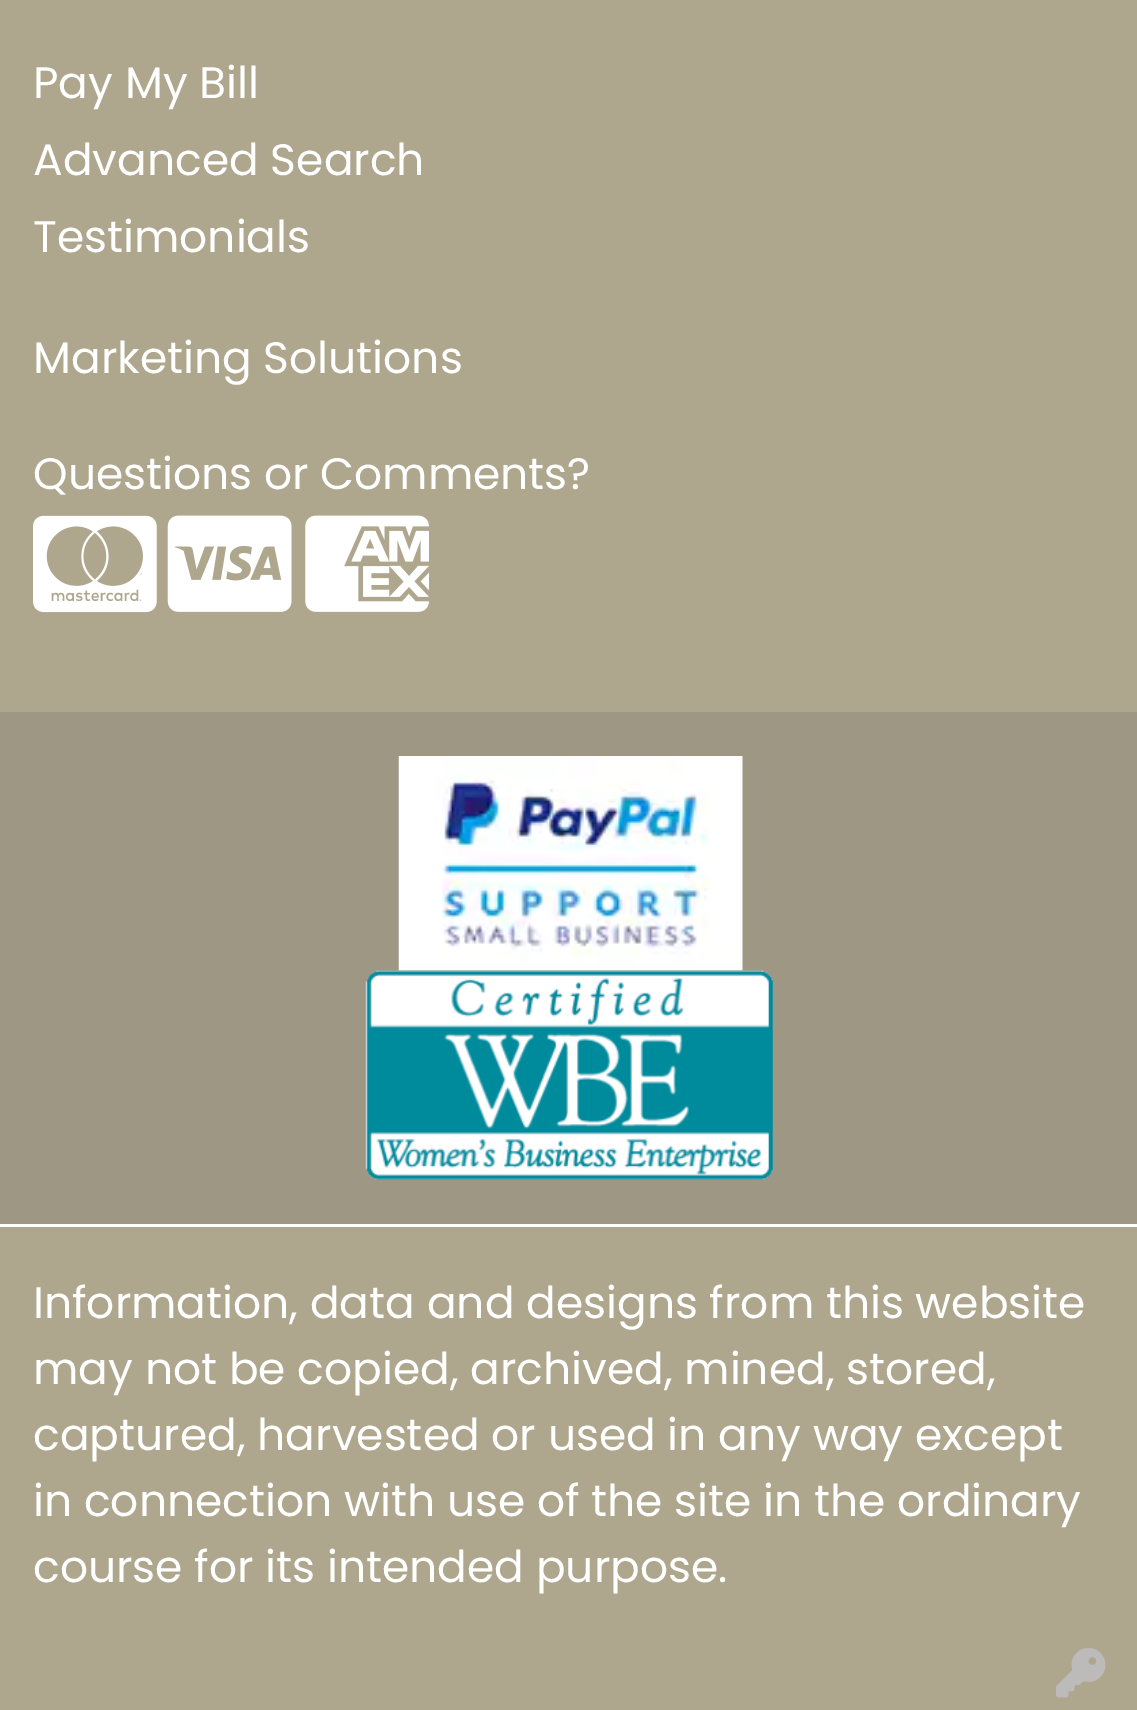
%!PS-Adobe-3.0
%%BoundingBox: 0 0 1137 1710
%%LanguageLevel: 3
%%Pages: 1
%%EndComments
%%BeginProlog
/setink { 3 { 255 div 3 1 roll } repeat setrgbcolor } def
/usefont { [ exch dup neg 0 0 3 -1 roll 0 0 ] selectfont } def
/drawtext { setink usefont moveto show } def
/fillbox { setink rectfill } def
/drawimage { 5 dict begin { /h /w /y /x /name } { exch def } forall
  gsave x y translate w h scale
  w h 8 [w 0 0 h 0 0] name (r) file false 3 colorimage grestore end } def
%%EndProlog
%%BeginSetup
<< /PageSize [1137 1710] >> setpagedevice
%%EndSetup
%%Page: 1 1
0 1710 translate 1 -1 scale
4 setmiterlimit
0 0 1137 1710 174 167 142 fillbox
(Pay My Bill) 33 98 /Poppins-Regular 44 255 255 255 drawtext
(Advanced Search) 33 175 /Poppins-Regular 44 255 255 255 drawtext
(Testimonials) 33 252 /Poppins-Regular 44 255 255 255 drawtext
(Marketing Solutions) 33 373 /Poppins-Regular 44 255 255 255 drawtext
(Questions or Comments?) 33 489 /Poppins-Regular 44 255 255 255 drawtext
(assets/img1.rgb) 33 515 124 98 drawimage
(assets/img2.rgb) 167 515 125 97 drawimage
(assets/img3.rgb) 305 515 124 97 drawimage
0 712 1137 512 157 151 132 fillbox
0 1224 1137 3 255 255 255 fillbox
(assets/img4.rgb) 398 756 345 215 drawimage
(assets/img5.rgb) 365 970 408 210 drawimage
(Information, data and designs from this website) 33 1318 /Poppins-Regular 44 255 255 255 drawtext
(may not be copied, archived, mined, stored,) 33 1384 /Poppins-Regular 44 255 255 255 drawtext
(captured, harvested or used in any way except) 33 1450 /Poppins-Regular 44 255 255 255 drawtext
(in connection with use of the site in the ordinary) 33 1516 /Poppins-Regular 44 255 255 255 drawtext
(course for its intended purpose.) 33 1582 /Poppins-Regular 44 255 255 255 drawtext
(assets/img6.rgb) 1056 1648 50 50 drawimage
showpage
%%EOF
